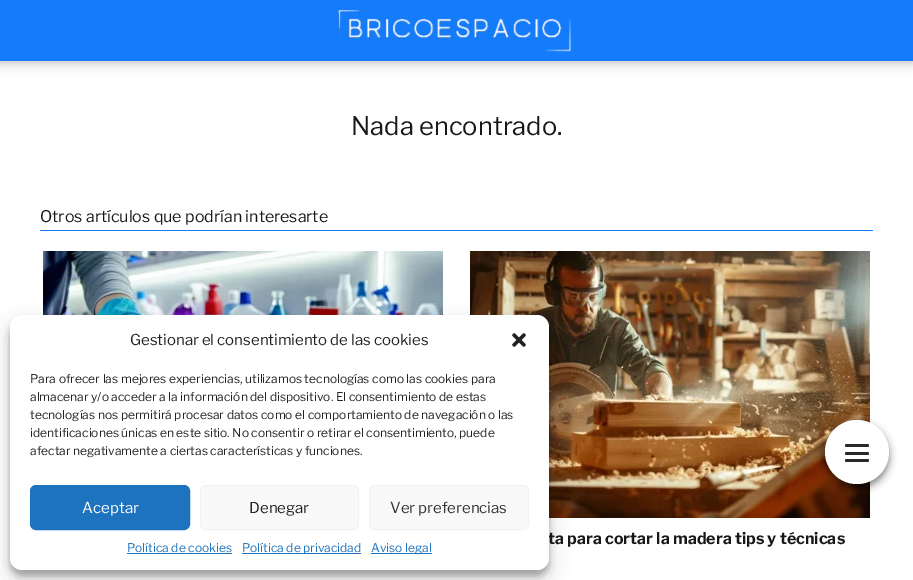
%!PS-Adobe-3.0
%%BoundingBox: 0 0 913 580
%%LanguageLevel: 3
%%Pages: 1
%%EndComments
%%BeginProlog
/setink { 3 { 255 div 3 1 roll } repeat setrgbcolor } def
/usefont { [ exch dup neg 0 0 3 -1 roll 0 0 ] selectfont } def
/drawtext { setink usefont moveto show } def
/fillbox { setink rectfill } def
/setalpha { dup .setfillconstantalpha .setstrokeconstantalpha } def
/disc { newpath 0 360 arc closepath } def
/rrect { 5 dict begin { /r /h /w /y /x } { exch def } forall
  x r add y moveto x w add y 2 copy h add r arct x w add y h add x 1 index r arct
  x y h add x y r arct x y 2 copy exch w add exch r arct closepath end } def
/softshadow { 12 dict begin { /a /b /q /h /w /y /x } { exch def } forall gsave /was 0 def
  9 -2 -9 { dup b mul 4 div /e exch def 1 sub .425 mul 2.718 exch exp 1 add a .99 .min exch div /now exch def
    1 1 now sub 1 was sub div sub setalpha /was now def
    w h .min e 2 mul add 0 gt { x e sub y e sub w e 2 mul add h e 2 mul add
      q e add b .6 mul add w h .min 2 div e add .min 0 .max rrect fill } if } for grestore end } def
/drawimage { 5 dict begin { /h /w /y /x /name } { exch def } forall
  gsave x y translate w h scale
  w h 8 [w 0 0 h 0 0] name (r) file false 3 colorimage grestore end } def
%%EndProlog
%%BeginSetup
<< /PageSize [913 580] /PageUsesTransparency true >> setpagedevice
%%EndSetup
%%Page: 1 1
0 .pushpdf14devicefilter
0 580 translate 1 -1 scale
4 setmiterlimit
0 0 913 580 255 255 255 fillbox
0 0 0 setink
0 1 913 61 0 6 0.3 softshadow
0 0 913 61 20 123 250 fillbox
(assets/img1.rgb) 338 10 234 42 drawimage
(assets/img3.rgb) 470 251 400 267 drawimage
0 0 0 setink
825 424 64 64 32 4 0.5 softshadow
255 255 255 setink
857 452 32 disc fill
40 40 40 setink
845 444 24 3 1.5 rrect fill
845 452 24 3 1.5 rrect fill
845 459 24 3 1.5 rrect fill
(Nada encontrado.) 351 135 /LibreFranklin-Thin 25.5 24 24 24 drawtext
40 230 833 1 20 123 250 fillbox
(Otros artículos que podrían interesarte) 40 222 /LibreFranklin-Thin 16 24 24 24 drawtext
(assets/img2.rgb) 43 251 400 64 drawimage
(ta para cortar la madera tips y técnicas) 548 544 /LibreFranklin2-Thin 16 24 24 24 drawtext
0 0 0 setink
10 321 539 255 12 3 0.23 softshadow
10 325 539 255 12 10 0.19 softshadow
255 255 255 setink
10 315 539 255 12 rrect fill
(Gestionar el consentimiento de las cookies) 130 345 /LibreFranklin-Thin 15 34 34 34 drawtext
(assets/img4.rgb) 512 333 14 14 drawimage
(Para ofrecer las mejores experiencias, utilizamos tecnologías como las cookies para) 30 383 /LibreFranklin-Thin 12 34 34 34 drawtext
(almacenar y/o acceder a la información del dispositivo. El consentimiento de estas) 30 401 /LibreFranklin-Thin 12 34 34 34 drawtext
(tecnologías nos permitirá procesar datos como el comportamiento de navegación o las) 30 419 /LibreFranklin-Thin 12 34 34 34 drawtext
(identificaciones únicas en este sitio. No consentir o retirar el consentimiento, puede) 30 437 /LibreFranklin-Thin 12 34 34 34 drawtext
(afectar negativamente a ciertas características y funciones.) 30 455 /LibreFranklin-Thin 12 34 34 34 drawtext
30 115 190 setink
30.5 485.5 159 44 5.5 rrect gsave fill grestore
stroke
(Aceptar) 82 513 /LibreFranklin-Thin 15 255 255 255 drawtext
249 249 249 setink
200.5 485.5 158 44 5.5 rrect gsave fill grestore
242 242 242 setink
stroke
(Denegar) 249 513 /LibreFranklin-Thin 15 34 34 34 drawtext
249 249 249 setink
369.5 485.5 159 44 5.5 rrect gsave fill grestore
242 242 242 setink
stroke
(Ver preferencias) 390 513 /LibreFranklin-Thin 15 51 51 51 drawtext
(Política de cookies) 127 552 /LibreFranklin-Thin 12 30 115 190 drawtext
127 553 105 1 30 115 190 fillbox
242 553 119 1 30 115 190 fillbox
(Política de privacidad) 242 552 /LibreFranklin-Thin 12 30 115 190 drawtext
371 553 61 1 30 115 190 fillbox
(Aviso legal) 371 552 /LibreFranklin-Thin 12 30 115 190 drawtext
.poppdf14devicefilter showpage
%%EOF
